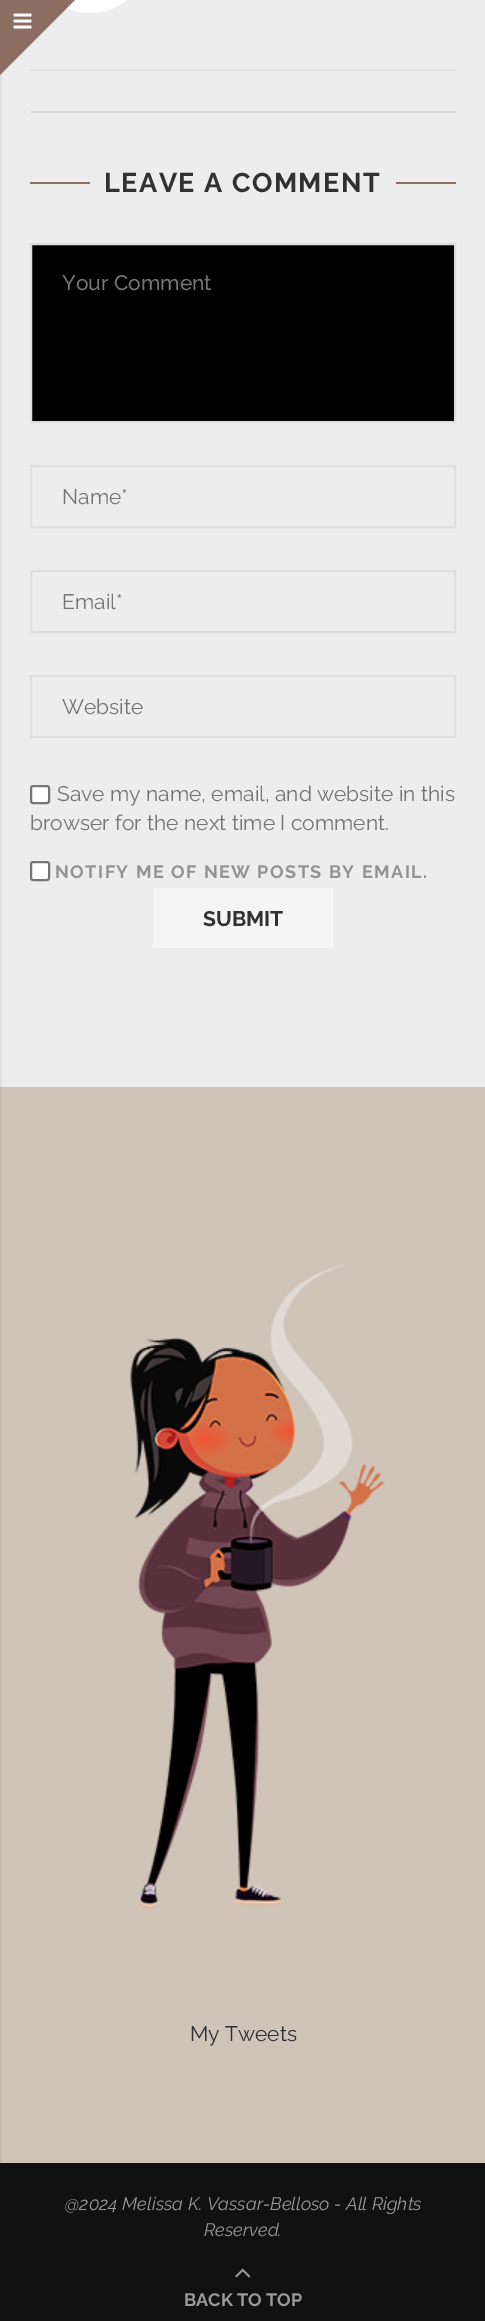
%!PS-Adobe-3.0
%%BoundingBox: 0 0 485 2321
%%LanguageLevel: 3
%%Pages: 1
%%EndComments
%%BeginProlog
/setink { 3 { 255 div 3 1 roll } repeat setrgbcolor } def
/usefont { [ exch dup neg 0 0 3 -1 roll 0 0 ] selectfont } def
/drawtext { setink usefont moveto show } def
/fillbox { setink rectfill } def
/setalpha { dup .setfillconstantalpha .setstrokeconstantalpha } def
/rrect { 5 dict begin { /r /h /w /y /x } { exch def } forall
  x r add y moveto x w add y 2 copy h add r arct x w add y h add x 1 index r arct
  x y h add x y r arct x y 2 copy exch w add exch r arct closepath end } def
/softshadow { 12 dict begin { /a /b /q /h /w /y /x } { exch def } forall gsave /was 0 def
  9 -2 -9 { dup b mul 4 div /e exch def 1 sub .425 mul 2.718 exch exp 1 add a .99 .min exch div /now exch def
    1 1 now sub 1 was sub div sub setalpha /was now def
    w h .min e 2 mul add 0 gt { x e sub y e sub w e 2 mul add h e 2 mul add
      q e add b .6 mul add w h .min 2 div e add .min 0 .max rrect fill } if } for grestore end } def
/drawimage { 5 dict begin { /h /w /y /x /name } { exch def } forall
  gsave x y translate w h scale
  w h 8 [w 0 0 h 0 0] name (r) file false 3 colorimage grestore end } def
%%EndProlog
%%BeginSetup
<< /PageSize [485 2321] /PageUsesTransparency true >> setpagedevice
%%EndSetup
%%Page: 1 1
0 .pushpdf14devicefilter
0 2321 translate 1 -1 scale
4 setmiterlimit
0 0 485 2321 237 237 237 fillbox
0 1087 485 1076 208 196 185 fillbox
0 2163 485 158 17 17 17 fillbox
0 0 0 setink
-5 0 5 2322 0 1.5 0.15 softshadow
(assets/img2.rgb) 66 0 61 13 drawimage
30 69 426 2 222 222 222 fillbox
141 110 99 setink
0 0 moveto 75 0 lineto 0 75 lineto closepath fill
(assets/img1.rgb) 13 13 19 16 drawimage
30 111 426 2 222 222 222 fillbox
30 182 60 2 141 110 99 fillbox
/Raleway-Bold 27 usefont
49 49 49 setink
104 192 moveto 1.5 0 (LEAVE A COMMENT) ashow
396 182 60 2 141 110 99 fillbox
0 0 0 setink
31 244 moveto 455 244 lineto 455 422 lineto 31 422 lineto closepath gsave fill grestore
222 222 222 setink
2 setlinewidth
stroke
(Your Comment) 62 290 /Raleway-Medium 21 117 117 117 drawtext
222 222 222 setink
31 466 424 61 rectstroke
(Name*) 62 504 /Raleway-Regular 21 117 117 117 drawtext
222 222 222 setink
31 571 424 61 rectstroke
(Email*) 62 609 /Raleway-Regular 21 117 117 117 drawtext
222 222 222 setink
31 676 424 61 rectstroke
(Website) 62 714 /Raleway-Regular 21 117 117 117 drawtext
255 255 255 setink
31 786 18 17 2 rrect gsave fill grestore
118 118 118 setink
stroke
(Save my name, email, and website in this) 57 801 /Raleway-Regular 21 117 117 117 drawtext
(browser for the next time I comment.) 30 830 /Raleway-Regular 21 117 117 117 drawtext
255 255 255 setink
31 862 18 18 2 rrect gsave fill grestore
118 118 118 setink
stroke
/Raleway-Bold 18 usefont
147 147 147 setink
55 878 moveto 1.5 0 (NOTIFY ME OF NEW POSTS BY EMAIL.) ashow
153 888 180 60 245 245 245 fillbox
(SUBMIT) 203 926 /Raleway-Bold 21 49 49 49 drawtext
(assets/img3.rgb) 130 1264 255 645 drawimage
(My Tweets) 190 2041 /Raleway-Regular 21 49 49 49 drawtext
(@2024 Melissa K. Vassar-Belloso - All Rights) 65 2210 /Raleway-Italic 18 153 153 153 drawtext
(Reserved.) 204 2236 /Raleway-Italic 18 153 153 153 drawtext
(assets/img4.rgb) 235 2268 16 10 drawimage
(BACK TO TOP) 184 2306 /Raleway-Bold 18 153 153 153 drawtext
.poppdf14devicefilter showpage
%%EOF
